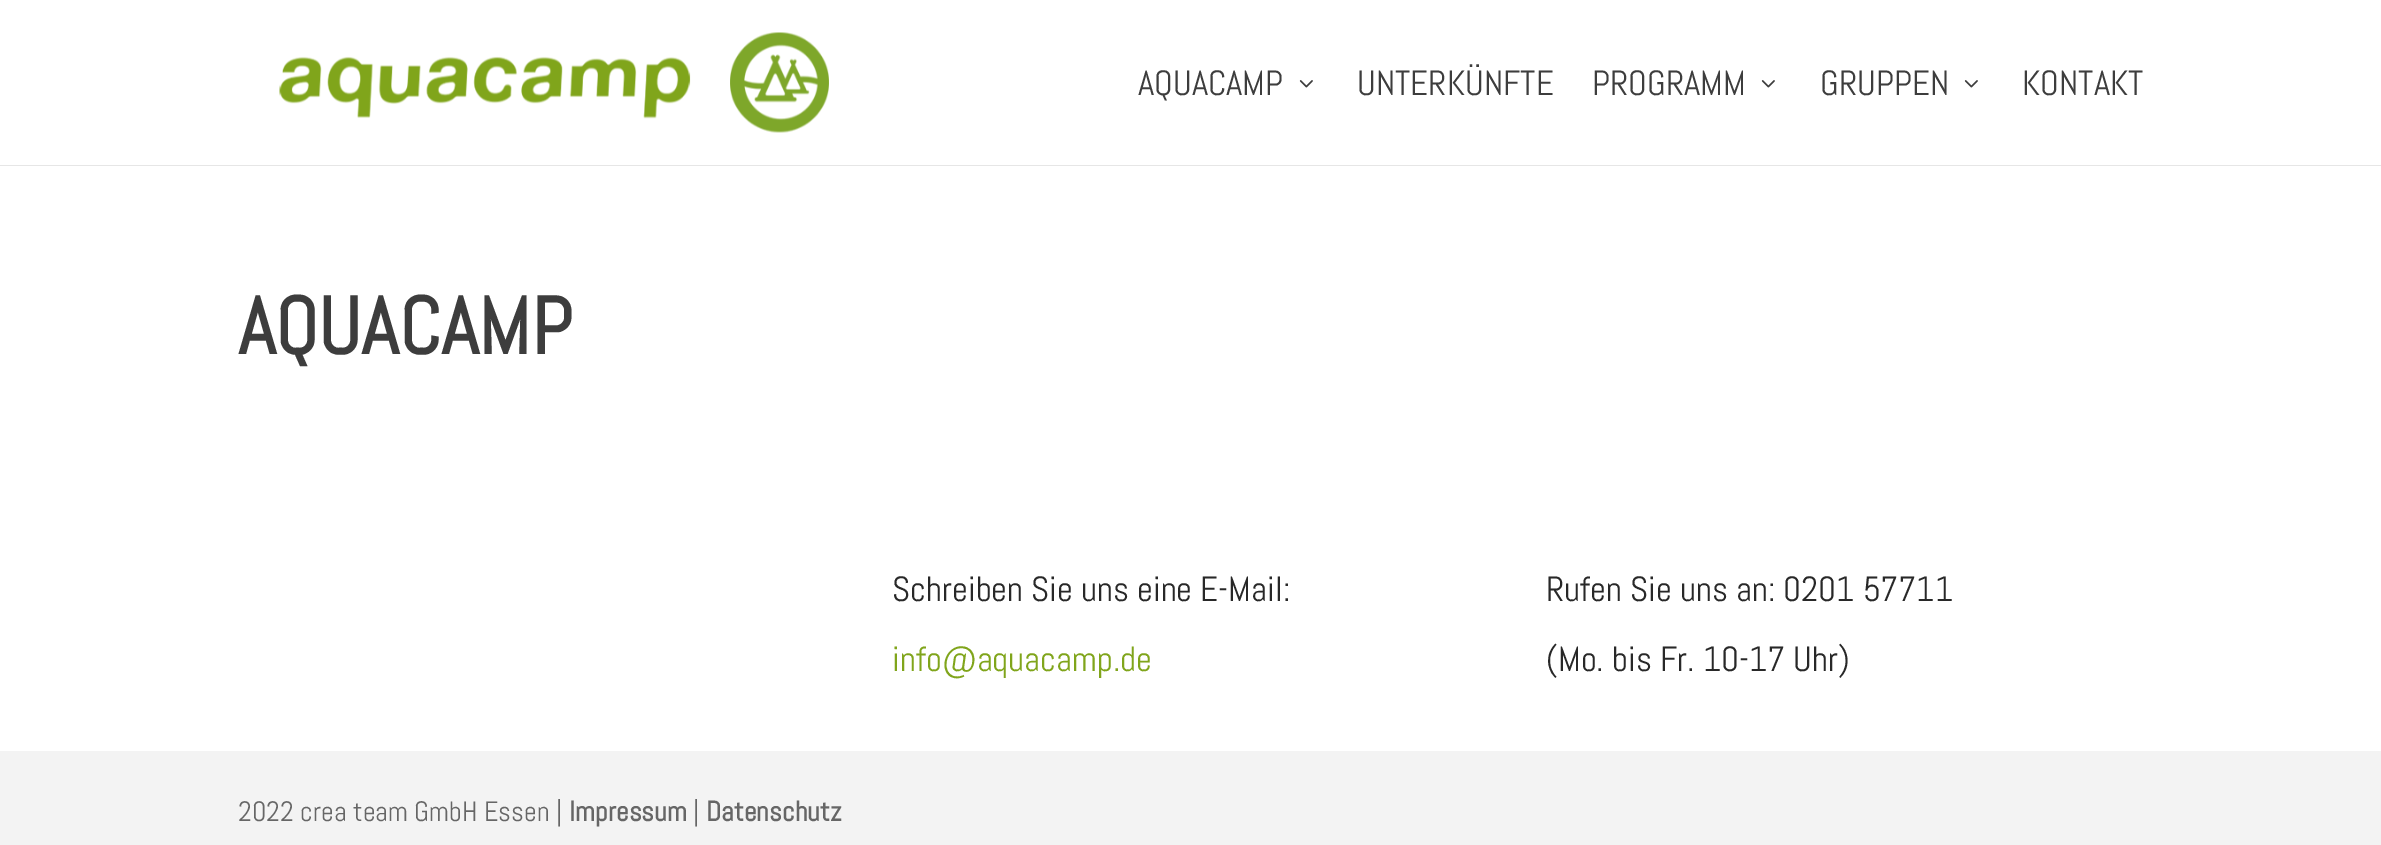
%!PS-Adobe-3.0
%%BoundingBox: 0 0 2381 845
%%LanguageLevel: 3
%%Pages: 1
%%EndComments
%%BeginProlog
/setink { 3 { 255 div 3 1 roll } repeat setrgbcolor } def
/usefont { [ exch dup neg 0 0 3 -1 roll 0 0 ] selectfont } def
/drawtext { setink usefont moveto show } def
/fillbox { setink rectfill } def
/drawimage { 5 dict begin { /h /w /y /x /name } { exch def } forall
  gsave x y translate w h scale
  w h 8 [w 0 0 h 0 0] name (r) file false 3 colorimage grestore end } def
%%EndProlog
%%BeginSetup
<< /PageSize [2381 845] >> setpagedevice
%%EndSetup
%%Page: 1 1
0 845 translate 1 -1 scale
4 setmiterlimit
0 0 2381 845 255 255 255 fillbox
230 230 230 setink
0 164 moveto 0 166 lineto 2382 166 lineto 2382 2 lineto 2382 164 lineto closepath fill
0 164 2381 1 255 255 255 fillbox
(assets/img1.rgb) 279 32 550 101 drawimage
(AQUACAMP) 1138 95 /Abel-Regular 35 61 61 61 drawtext
(assets/img2.rgb) 1299 80 14 8 drawimage
(UNTERKÜNFTE) 1357 95 /Abel-Regular 35 61 61 61 drawtext
(PROGRAMM) 1592 95 /Abel-Regular 35 61 61 61 drawtext
(assets/img2.rgb) 1761 80 14 8 drawimage
(GRUPPEN) 1820 95 /Abel-Regular 35 61 61 61 drawtext
(assets/img2.rgb) 1964 80 14 8 drawimage
(KONTAKT) 2022 95 /Abel-Regular 35 61 61 61 drawtext
(AQUACAMP) 238 354 /Abel-Bold 80.5 61 61 61 drawtext
(Schreiben Sie uns eine E-Mail:) 892 601 /Abel-Regular 35 40 40 40 drawtext
(info@aquacamp.de) 892 671 /Abel-Regular 35 128 165 27 drawtext
(Rufen Sie uns an: 0201 57711) 1546 601 /Abel-Regular 35 40 40 40 drawtext
(\(Mo. bis Fr. 10-17 Uhr\)) 1546 671 /Abel-Regular 35 40 40 40 drawtext
0 751 2381 94 243 243 243 fillbox
(2022 crea team GmbH Essen |) 238 821 /Abel-Regular 28 102 102 102 drawtext
(Impressum) 569 821 /Abel-Bold 28 102 102 102 drawtext
(|) 693 821 /Abel-Regular 28 102 102 102 drawtext
(Datenschutz) 706 821 /Abel-Bold 28 102 102 102 drawtext
showpage
%%EOF
